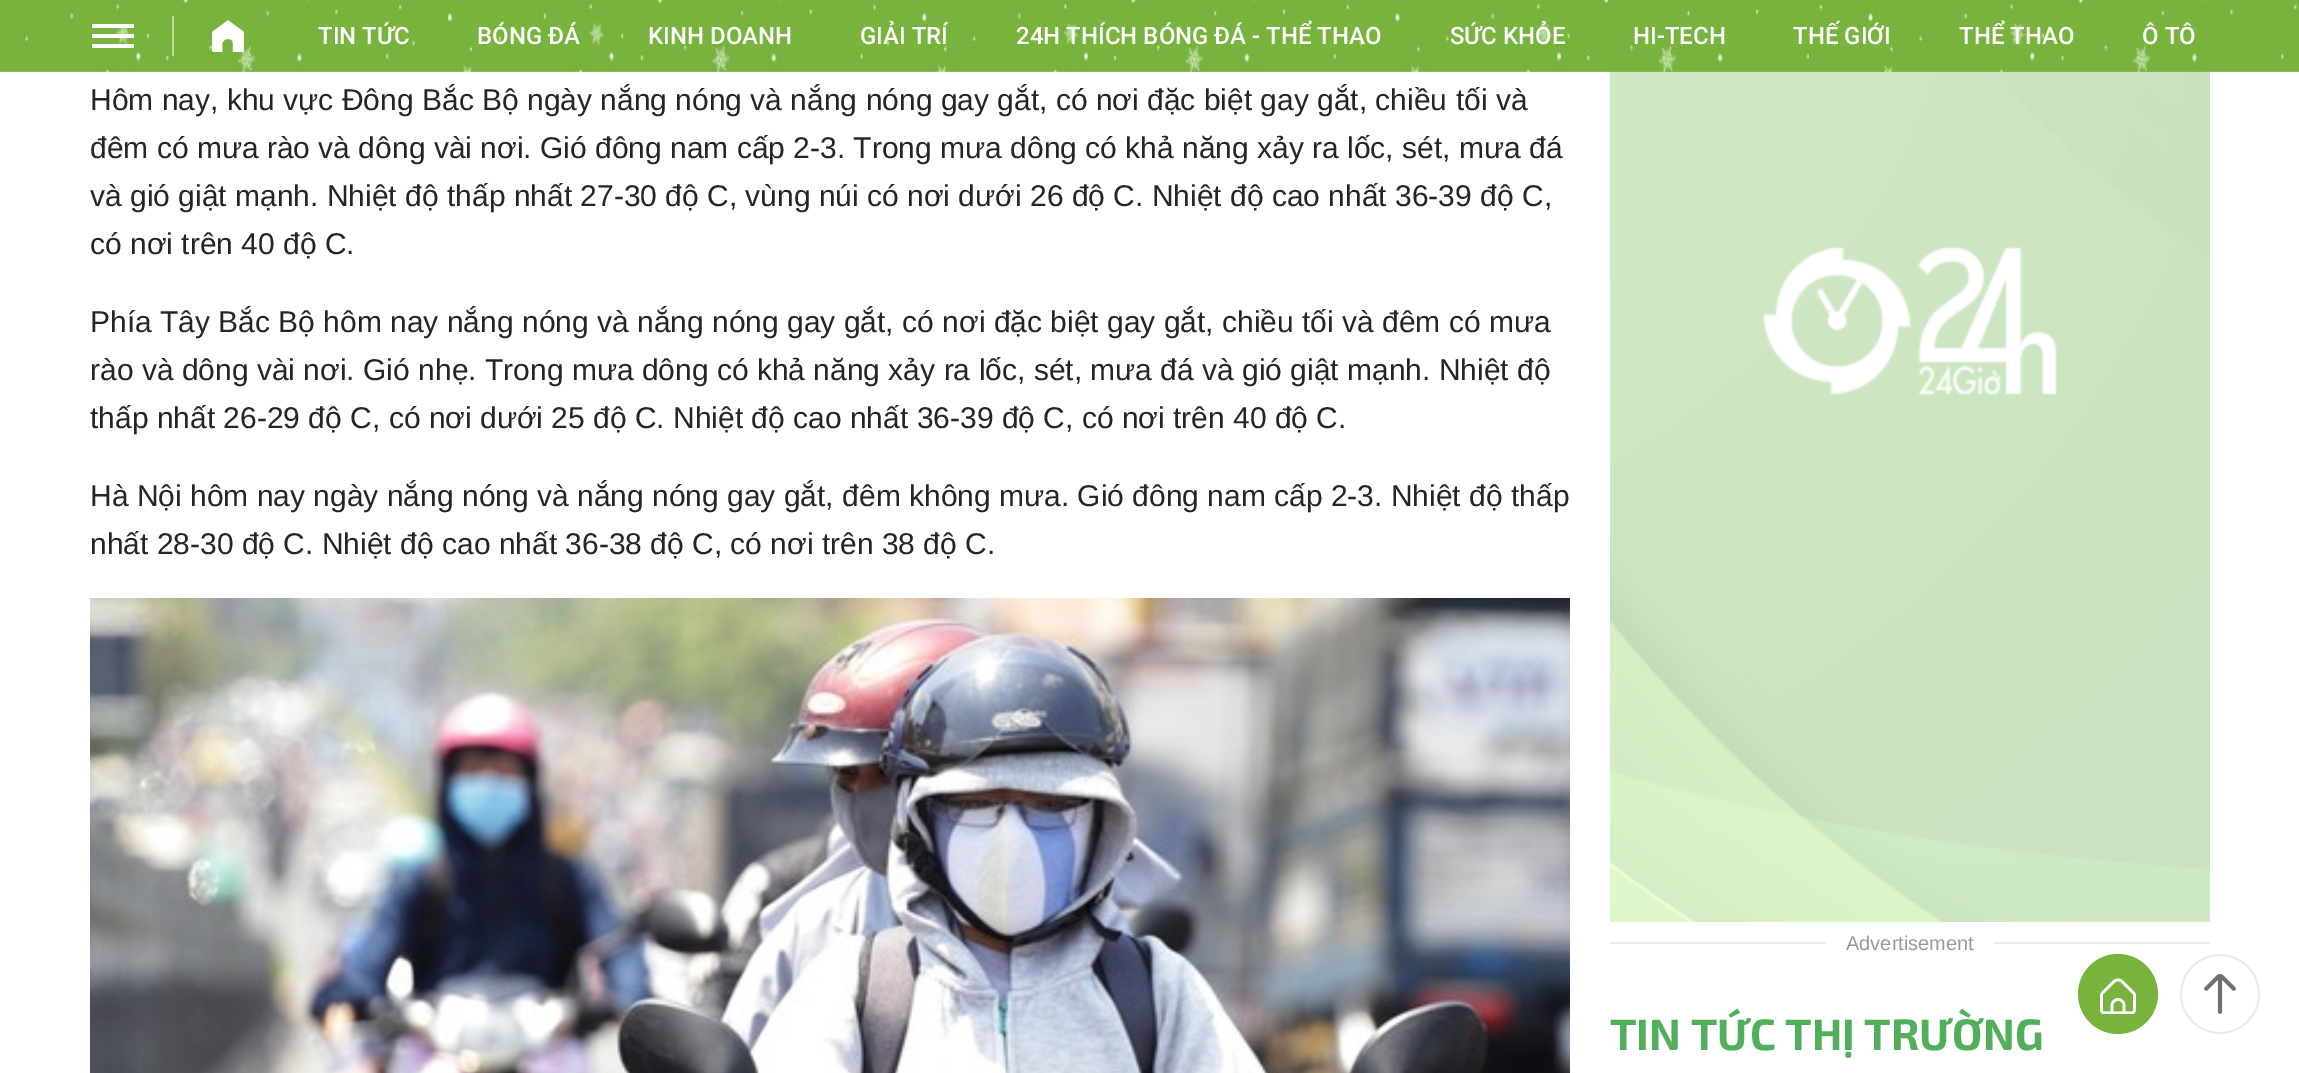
%!PS-Adobe-3.0
%%BoundingBox: 0 0 2299 1073
%%LanguageLevel: 3
%%Pages: 1
%%EndComments
%%BeginProlog
/setink { 3 { 255 div 3 1 roll } repeat setrgbcolor } def
/usefont { [ exch dup neg 0 0 3 -1 roll 0 0 ] selectfont } def
/drawtext { setink usefont moveto show } def
/fillbox { setink rectfill } def
/setalpha { dup .setfillconstantalpha .setstrokeconstantalpha } def
/disc { newpath 0 360 arc closepath } def
/drawimage { 5 dict begin { /h /w /y /x /name } { exch def } forall
  gsave x y translate w h scale
  w h 8 [w 0 0 h 0 0] name (r) file false 3 colorimage grestore end } def
%%EndProlog
%%BeginSetup
<< /PageSize [2299 1073] /PageUsesTransparency true >> setpagedevice
%%EndSetup
%%Page: 1 1
0 .pushpdf14devicefilter
0 1073 translate 1 -1 scale
4 setmiterlimit
0 0 2299 1073 255 255 255 fillbox
(assets/img4.rgb) 1610 71 600 851 drawimage
(assets/img1.rgb) 0 0 2299 72 drawimage
92 24 42 4 255 255 255 fillbox
92 34 42 4 255 255 255 fillbox
92 44 42 4 255 255 255 fillbox
0.5 setalpha
172 16 2 40 255 255 255 fillbox
1 setalpha
(assets/img2.rgb) 212 20 32 32 drawimage
(TIN TỨC) 318 44 /Roboto-Medium 24 255 255 255 drawtext
(BÓNG ĐÁ) 477 44 /Roboto-Medium 24 255 255 255 drawtext
(KINH DOANH) 648 44 /Roboto-Medium 24 255 255 255 drawtext
(GIẢI TRÍ) 860 44 /Roboto-Medium 24 255 255 255 drawtext
(24H THÍCH BÓNG ĐÁ - THỂ THAO) 1016 44 /Roboto-Medium 24 255 255 255 drawtext
(SỨC KHỎE) 1450 44 /Roboto-Medium 24 255 255 255 drawtext
(HI-TECH) 1633 44 /Roboto-Medium 24 255 255 255 drawtext
(THẾ GIỚI) 1793 44 /Roboto-Medium 24 255 255 255 drawtext
(THỂ THAO) 1959 44 /Roboto-Medium 24 255 255 255 drawtext
(Ô TÔ) 2142 44 /Roboto-Medium 24 255 255 255 drawtext
(Hôm nay, khu vực Đông Bắc Bộ ngày nắng nóng và nắng nóng gay gắt, có nơi đặc biệt gay gắt, chiều tối và) 90 110 /LiberationSans-Regular 30 37 37 37 drawtext
(đêm có mưa rào và dông vài nơi. Gió đông nam cấp 2-3. Trong mưa dông có khả năng xảy ra lốc, sét, mưa đá) 90 158 /LiberationSans-Regular 30 37 37 37 drawtext
(và gió giật mạnh. Nhiệt độ thấp nhất 27-30 độ C, vùng núi có nơi dưới 26 độ C. Nhiệt độ cao nhất 36-39 độ C,) 90 206 /LiberationSans-Regular 30 37 37 37 drawtext
(có nơi trên 40 độ C.) 90 254 /LiberationSans-Regular 30 37 37 37 drawtext
(Phía Tây Bắc Bộ hôm nay nắng nóng và nắng nóng gay gắt, có nơi đặc biệt gay gắt, chiều tối và đêm có mưa) 90 332 /LiberationSans-Regular 30 37 37 37 drawtext
(rào và dông vài nơi. Gió nhẹ. Trong mưa dông có khả năng xảy ra lốc, sét, mưa đá và gió giật mạnh. Nhiệt độ) 90 380 /LiberationSans-Regular 30 37 37 37 drawtext
(thấp nhất 26-29 độ C, có nơi dưới 25 độ C. Nhiệt độ cao nhất 36-39 độ C, có nơi trên 40 độ C.) 90 428 /LiberationSans-Regular 30 37 37 37 drawtext
(Hà Nội hôm nay ngày nắng nóng và nắng nóng gay gắt, đêm không mưa. Gió đông nam cấp 2-3. Nhiệt độ thấp) 90 506 /LiberationSans-Regular 30 37 37 37 drawtext
(nhất 28-30 độ C. Nhiệt độ cao nhất 36-38 độ C, có nơi trên 38 độ C.) 90 554 /LiberationSans-Regular 30 37 37 37 drawtext
(assets/img3.rgb) 90 598 1480 475 drawimage
1610 942 216 2 235 235 235 fillbox
(Advertisement) 1846 950 /LiberationSans-Regular 20 153 153 153 drawtext
1994 942 216 2 235 235 235 fillbox
(TIN TỨC THỊ TRƯỜNG) 1610 1050 /Exo2-Bold 44 81 174 90 drawtext
235 235 235 setink
2 setlinewidth
2220 994 39 disc stroke
(assets/img5.rgb) 2204 974 32 40 drawimage
120 180 61 setink
2118 994 40 disc fill
(assets/img6.rgb) 2100 978 36 36 drawimage
.poppdf14devicefilter showpage
%%EOF
